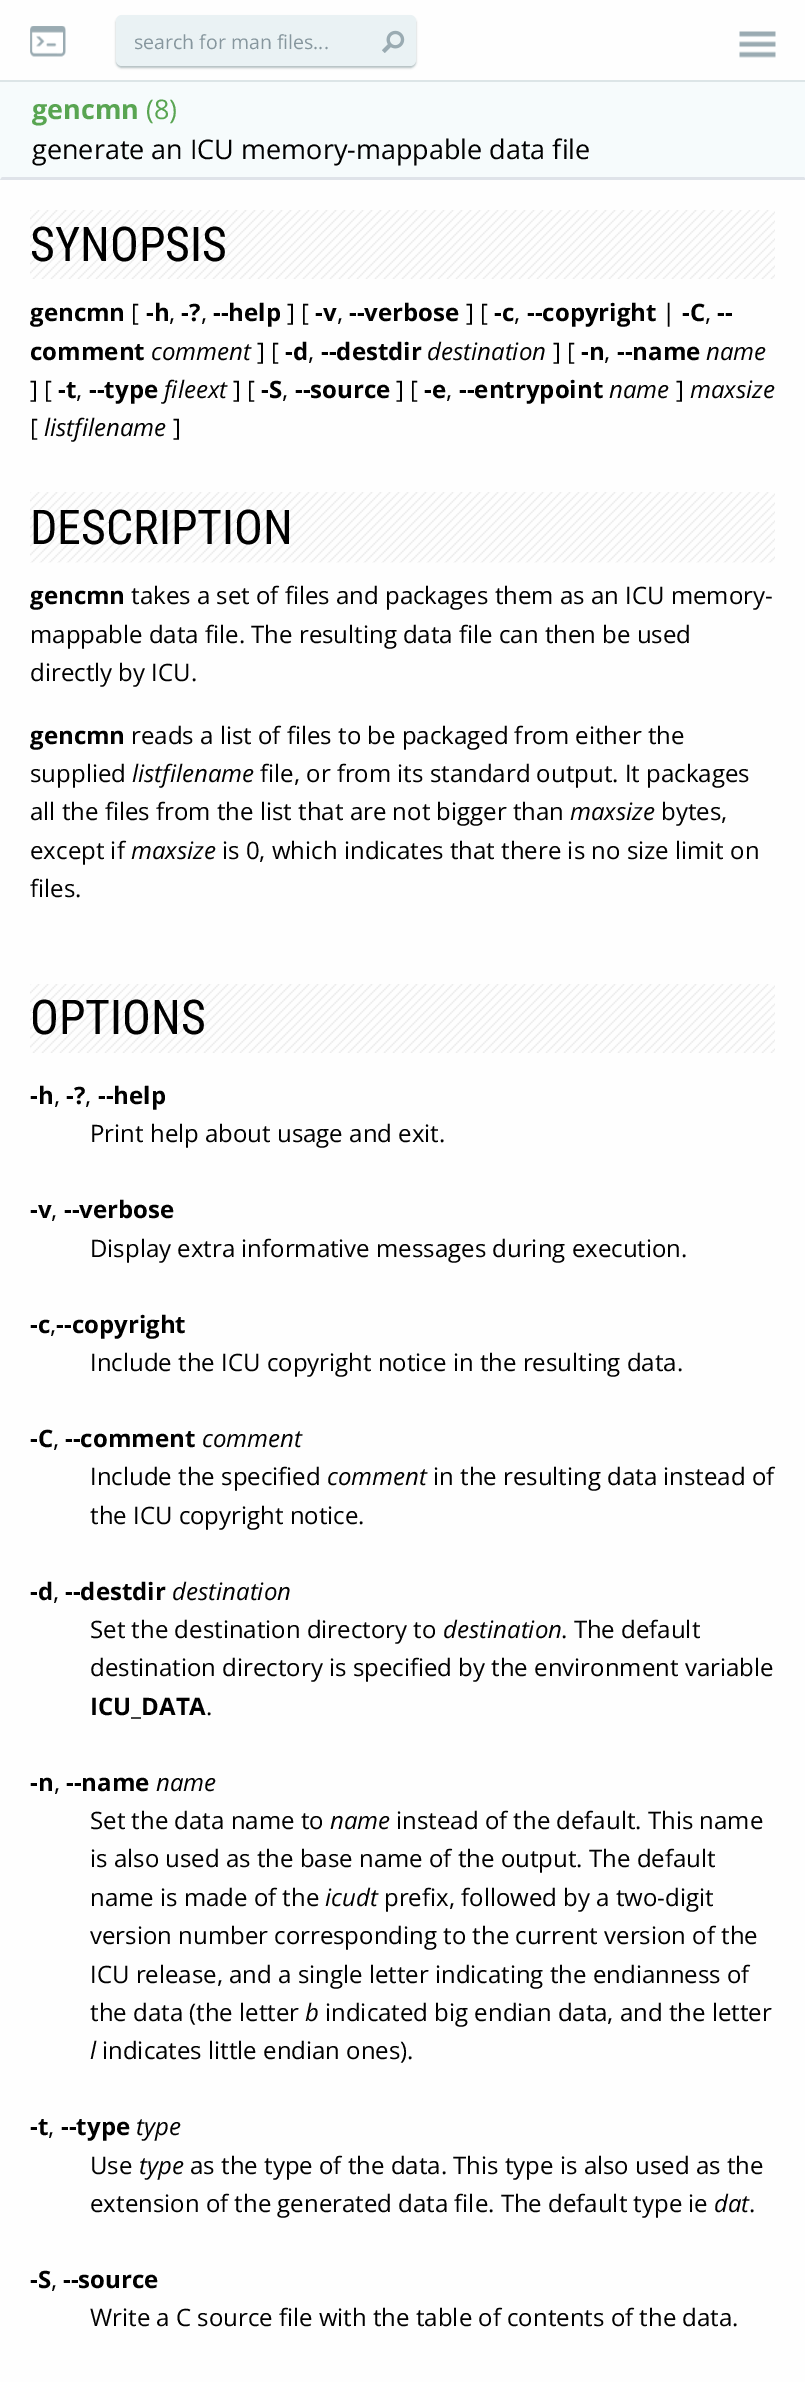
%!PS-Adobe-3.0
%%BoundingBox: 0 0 805 2382
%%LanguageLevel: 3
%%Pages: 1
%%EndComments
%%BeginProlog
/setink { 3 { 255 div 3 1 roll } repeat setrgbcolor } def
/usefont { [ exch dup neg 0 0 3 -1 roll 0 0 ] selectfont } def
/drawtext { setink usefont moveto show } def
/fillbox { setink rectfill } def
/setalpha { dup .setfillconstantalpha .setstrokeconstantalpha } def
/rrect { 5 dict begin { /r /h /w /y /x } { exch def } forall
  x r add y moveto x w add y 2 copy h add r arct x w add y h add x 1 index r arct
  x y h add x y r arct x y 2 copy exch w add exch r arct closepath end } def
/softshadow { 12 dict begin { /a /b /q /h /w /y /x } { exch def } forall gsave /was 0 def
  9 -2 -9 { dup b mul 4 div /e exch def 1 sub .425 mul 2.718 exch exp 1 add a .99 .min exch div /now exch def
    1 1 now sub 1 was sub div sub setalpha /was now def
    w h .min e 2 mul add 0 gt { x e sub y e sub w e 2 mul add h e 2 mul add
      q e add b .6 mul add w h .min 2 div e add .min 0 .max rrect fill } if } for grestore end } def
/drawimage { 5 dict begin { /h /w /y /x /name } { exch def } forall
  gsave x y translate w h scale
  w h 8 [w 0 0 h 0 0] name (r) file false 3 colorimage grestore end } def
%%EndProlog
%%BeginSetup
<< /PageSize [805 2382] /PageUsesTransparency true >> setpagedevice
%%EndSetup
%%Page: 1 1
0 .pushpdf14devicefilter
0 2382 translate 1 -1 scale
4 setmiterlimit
0 0 805 2382 254 254 254 fillbox
0 80 805 2 220 229 231 fillbox
(assets/img1.rgb) 30 26 36 31 drawimage
6 47 55 setink
116 17 300 51 6 1 0.3 softshadow
234 242 244 setink
116 15 300 51 6 rrect fill
(search for man files...) 134 49 /OpenSans-Regular 19.5 134 150 157 drawtext
(assets/img2.rgb) 382 30 23 23 drawimage
(assets/img3.rgb) 739 31 37 27 drawimage
0 82 805 98 246 251 252 fillbox
223 227 233 setink
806 180 moveto 0 180 lineto 2 177 lineto 804 177 lineto closepath fill
(gencmn) 32 119 /OpenSans-Bold 27 89 165 82 drawtext
(\(8\)) 146 119 /OpenSans-Regular 27 89 165 82 drawtext
(generate an ICU memory-mappable data file) 32 159 /OpenSans-Regular 27 0 0 0 drawtext
(assets/img4.rgb) 30 210 745 69 drawimage
(SYNOPSIS) 30 261 /RobotoCondensed-Regular 48 0 0 0 drawtext
(gencmn) 30 321 /OpenSans-Bold 24 0 0 0 drawtext
([) 131 321 /OpenSans-Regular 24 0 0 0 drawtext
(-h) 146 321 /OpenSans-Bold 24 0 0 0 drawtext
(-?) 181 321 /OpenSans-Bold 24 0 0 0 drawtext
(--help) 213 321 /OpenSans-Bold 24 0 0 0 drawtext
(] [) 287 321 /OpenSans-Regular 24 0 0 0 drawtext
(-v) 315 321 /OpenSans-Bold 24 0 0 0 drawtext
(--verbose) 349 321 /OpenSans-Bold 24 0 0 0 drawtext
(] [) 466 321 /OpenSans-Regular 24 0 0 0 drawtext
(-c) 494 321 /OpenSans-Bold 24 0 0 0 drawtext
(--copyright) 527 321 /OpenSans-Bold 24 0 0 0 drawtext
(|) 662 321 /OpenSans-Regular 24 0 0 0 drawtext
(-C) 682 321 /OpenSans-Bold 24 0 0 0 drawtext
(--) 717 321 /OpenSans-Bold 24 0 0 0 drawtext
(,) 169 321 /OpenSans-Regular 24 0 0 0 drawtext
(,) 201 321 /OpenSans-Regular 24 0 0 0 drawtext
(,) 337 321 /OpenSans-Regular 24 0 0 0 drawtext
(,) 514 321 /OpenSans-Regular 24 0 0 0 drawtext
(,) 705 321 /OpenSans-Regular 24 0 0 0 drawtext
(comment) 30 360 /OpenSans-Bold 24 0 0 0 drawtext
(comment) 151 360 /OpenSans-Italic 24 0 0 0 drawtext
(] [) 257 360 /OpenSans-Regular 24 0 0 0 drawtext
(-d) 285 360 /OpenSans-Bold 24 0 0 0 drawtext
(,) 308 360 /OpenSans-Regular 24 0 0 0 drawtext
(--destdir) 321 360 /OpenSans-Bold 24 0 0 0 drawtext
(destination) 427 360 /OpenSans-Italic 24 0 0 0 drawtext
(] [) 553 360 /OpenSans-Regular 24 0 0 0 drawtext
(-n) 581 360 /OpenSans-Bold 24 0 0 0 drawtext
(,) 604 360 /OpenSans-Regular 24 0 0 0 drawtext
(--name) 617 360 /OpenSans-Bold 24 0 0 0 drawtext
(name) 706 360 /OpenSans-Italic 24 0 0 0 drawtext
(] [) 30 398 /OpenSans-Regular 24 0 0 0 drawtext
(-t) 58 398 /OpenSans-Bold 24 0 0 0 drawtext
(,) 76 398 /OpenSans-Regular 24 0 0 0 drawtext
(--type) 89 398 /OpenSans-Bold 24 0 0 0 drawtext
(fileext) 164 398 /OpenSans-Italic 24 0 0 0 drawtext
(] [) 233 398 /OpenSans-Regular 24 0 0 0 drawtext
(-S) 261 398 /OpenSans-Bold 24 0 0 0 drawtext
(,) 282 398 /OpenSans-Regular 24 0 0 0 drawtext
(--source) 295 398 /OpenSans-Bold 24 0 0 0 drawtext
(] [) 396 398 /OpenSans-Regular 24 0 0 0 drawtext
(-e) 424 398 /OpenSans-Bold 24 0 0 0 drawtext
(,) 446 398 /OpenSans-Regular 24 0 0 0 drawtext
(--entrypoint) 459 398 /OpenSans-Bold 24 0 0 0 drawtext
(name) 609 398 /OpenSans-Italic 24 0 0 0 drawtext
(]) 676 398 /OpenSans-Regular 24 0 0 0 drawtext
(maxsize) 690 398 /OpenSans-Italic 24 0 0 0 drawtext
([) 30 436 /OpenSans-Regular 24 0 0 0 drawtext
(listfilename) 44 436 /OpenSans-Italic 24 0 0 0 drawtext
(]) 173 436 /OpenSans-Regular 24 0 0 0 drawtext
(assets/img5.rgb) 30 492 745 71 drawimage
(DESCRIPTION) 30 544 /RobotoCondensed-Regular 48 0 0 0 drawtext
(gencmn) 30 604 /OpenSans-Bold 24 0 0 0 drawtext
(takes a set of files and packages them as an ICU memory-) 131 604 /OpenSans-Regular 24 0 0 0 drawtext
(mappable data file. The resulting data file can then be used) 30 643 /OpenSans-Regular 24 0 0 0 drawtext
(directly by ICU.) 30 681 /OpenSans-Regular 24 0 0 0 drawtext
(gencmn) 30 744 /OpenSans-Bold 24 0 0 0 drawtext
(reads a list of files to be packaged from either the) 131 744 /OpenSans-Regular 24 0 0 0 drawtext
(supplied) 30 782 /OpenSans-Regular 24 0 0 0 drawtext
(listfilename) 132 782 /OpenSans-Italic 24 0 0 0 drawtext
(file, or from its standard output. It packages) 260 782 /OpenSans-Regular 24 0 0 0 drawtext
(all the files from the list that are not bigger than) 30 820 /OpenSans-Regular 24 0 0 0 drawtext
(maxsize) 570 820 /OpenSans-Italic 24 0 0 0 drawtext
(bytes,) 661 820 /OpenSans-Regular 24 0 0 0 drawtext
(except if) 30 859 /OpenSans-Regular 24 0 0 0 drawtext
(maxsize) 131 859 /OpenSans-Italic 24 0 0 0 drawtext
(is 0, which indicates that there is no size limit on) 222 859 /OpenSans-Regular 24 0 0 0 drawtext
(files.) 30 897 /OpenSans-Regular 24 0 0 0 drawtext
(assets/img4.rgb) 30 984 745 69 drawimage
(OPTIONS) 30 1034 /RobotoCondensed-Regular 48 0 0 0 drawtext
(-h) 30 1104 /OpenSans-Bold 24 0 0 0 drawtext
(,) 54 1104 /OpenSans-Regular 24 0 0 0 drawtext
(-?) 66 1104 /OpenSans-Bold 24 0 0 0 drawtext
(,) 85 1104 /OpenSans-Regular 24 0 0 0 drawtext
(--help) 98 1104 /OpenSans-Bold 24 0 0 0 drawtext
(Print help about usage and exit.) 90 1142 /OpenSans-Regular 24 0 0 0 drawtext
(-v) 30 1218 /OpenSans-Bold 24 0 0 0 drawtext
(,) 51 1218 /OpenSans-Regular 24 0 0 0 drawtext
(--verbose) 64 1218 /OpenSans-Bold 24 0 0 0 drawtext
(Display extra informative messages during execution.) 90 1257 /OpenSans-Regular 24 0 0 0 drawtext
(-c --copyright) 30 1333 /OpenSans-Bold 24 0 0 0 drawtext
(,) 50 1333 /OpenSans-Regular 24 0 0 0 drawtext
(Include the ICU copyright notice in the resulting data.) 90 1371 /OpenSans-Regular 24 0 0 0 drawtext
(-C) 30 1447 /OpenSans-Bold 24 0 0 0 drawtext
(,) 53 1447 /OpenSans-Regular 24 0 0 0 drawtext
(--comment) 65 1447 /OpenSans-Bold 24 0 0 0 drawtext
(comment) 202 1447 /OpenSans-Italic 24 0 0 0 drawtext
(Include the specified) 90 1485 /OpenSans-Regular 24 0 0 0 drawtext
(comment) 327 1485 /OpenSans-Italic 24 0 0 0 drawtext
(in the resulting data instead of) 433 1485 /OpenSans-Regular 24 0 0 0 drawtext
(the ICU copyright notice.) 90 1524 /OpenSans-Regular 24 0 0 0 drawtext
(-d) 30 1600 /OpenSans-Bold 24 0 0 0 drawtext
(,) 53 1600 /OpenSans-Regular 24 0 0 0 drawtext
(--destdir) 65 1600 /OpenSans-Bold 24 0 0 0 drawtext
(destination) 172 1600 /OpenSans-Italic 24 0 0 0 drawtext
(Set the destination directory to) 90 1638 /OpenSans-Regular 24 0 0 0 drawtext
(destination) 443 1638 /OpenSans-Italic 24 0 0 0 drawtext
(. The default) 561 1638 /OpenSans-Regular 24 0 0 0 drawtext
(destination directory is specified by the environment variable) 90 1676 /OpenSans-Regular 24 0 0 0 drawtext
(ICU_DATA) 90 1715 /OpenSans-Bold 24 0 0 0 drawtext
(.) 206 1715 /OpenSans-Regular 24 0 0 0 drawtext
(-n) 30 1791 /OpenSans-Bold 24 0 0 0 drawtext
(,) 54 1791 /OpenSans-Regular 24 0 0 0 drawtext
(--name) 66 1791 /OpenSans-Bold 24 0 0 0 drawtext
(name) 156 1791 /OpenSans-Italic 24 0 0 0 drawtext
(Set the data name to) 90 1829 /OpenSans-Regular 24 0 0 0 drawtext
(name) 330 1829 /OpenSans-Italic 24 0 0 0 drawtext
(instead of the default. This name) 396 1829 /OpenSans-Regular 24 0 0 0 drawtext
(is also used as the base name of the output. The default) 90 1867 /OpenSans-Regular 24 0 0 0 drawtext
(name is made of the) 90 1906 /OpenSans-Regular 24 0 0 0 drawtext
(icudt) 325 1906 /OpenSans-Italic 24 0 0 0 drawtext
(prefix, followed by a two-digit) 384 1906 /OpenSans-Regular 24 0 0 0 drawtext
(version number corresponding to the current version of the) 90 1944 /OpenSans-Regular 24 0 0 0 drawtext
(ICU release, and a single letter indicating the endianness of) 90 1983 /OpenSans-Regular 24 0 0 0 drawtext
(the data \(the letter) 90 2021 /OpenSans-Regular 24 0 0 0 drawtext
(b) 305 2021 /OpenSans-Italic 24 0 0 0 drawtext
(indicated big endian data, and the letter) 325 2021 /OpenSans-Regular 24 0 0 0 drawtext
(l) 90 2059 /OpenSans-Italic 24 0 0 0 drawtext
(indicates little endian ones\).) 102 2059 /OpenSans-Regular 24 0 0 0 drawtext
(-t) 30 2135 /OpenSans-Bold 24 0 0 0 drawtext
(,) 48 2135 /OpenSans-Regular 24 0 0 0 drawtext
(--type) 61 2135 /OpenSans-Bold 24 0 0 0 drawtext
(type) 136 2135 /OpenSans-Italic 24 0 0 0 drawtext
(Use) 90 2174 /OpenSans-Regular 24 0 0 0 drawtext
(type) 139 2174 /OpenSans-Italic 24 0 0 0 drawtext
(as the type of the data. This type is also used as the) 190 2174 /OpenSans-Regular 24 0 0 0 drawtext
(extension of the generated data file. The default type ie) 90 2212 /OpenSans-Regular 24 0 0 0 drawtext
(dat) 714 2212 /OpenSans-Italic 24 0 0 0 drawtext
(.) 749 2212 /OpenSans-Regular 24 0 0 0 drawtext
(-S) 30 2288 /OpenSans-Bold 24 0 0 0 drawtext
(,) 51 2288 /OpenSans-Regular 24 0 0 0 drawtext
(--source) 63 2288 /OpenSans-Bold 24 0 0 0 drawtext
(Write a C source file with the table of contents of the data.) 90 2326 /OpenSans-Regular 24 0 0 0 drawtext
.poppdf14devicefilter showpage
%%EOF
